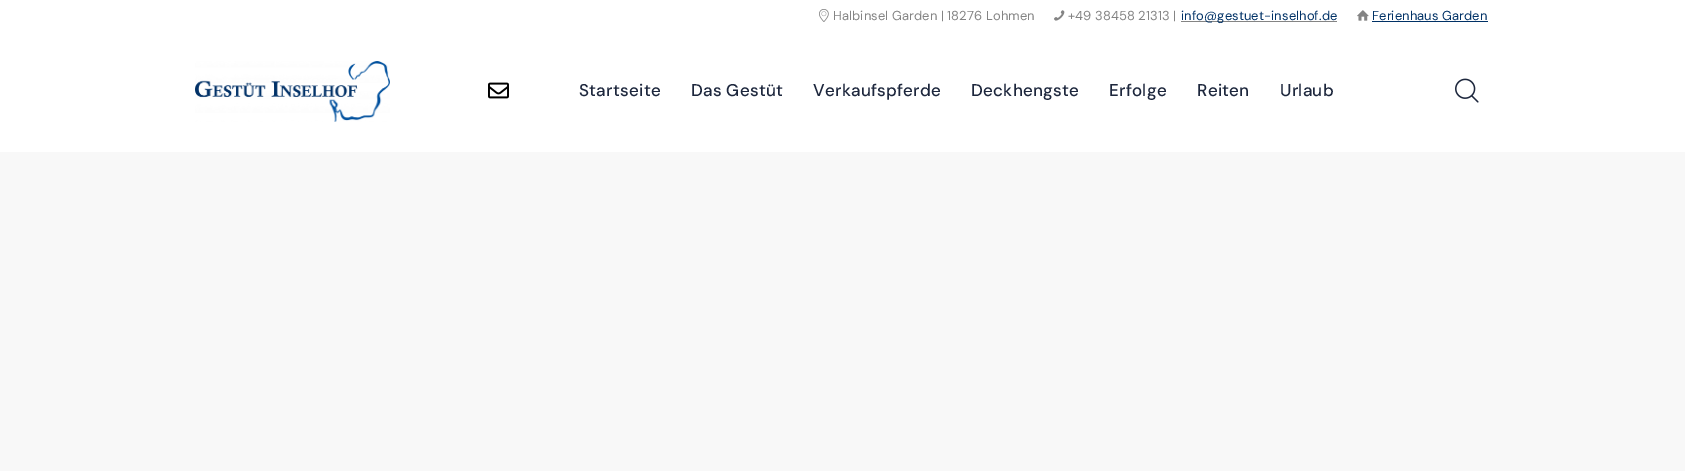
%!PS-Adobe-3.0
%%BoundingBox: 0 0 1685 471
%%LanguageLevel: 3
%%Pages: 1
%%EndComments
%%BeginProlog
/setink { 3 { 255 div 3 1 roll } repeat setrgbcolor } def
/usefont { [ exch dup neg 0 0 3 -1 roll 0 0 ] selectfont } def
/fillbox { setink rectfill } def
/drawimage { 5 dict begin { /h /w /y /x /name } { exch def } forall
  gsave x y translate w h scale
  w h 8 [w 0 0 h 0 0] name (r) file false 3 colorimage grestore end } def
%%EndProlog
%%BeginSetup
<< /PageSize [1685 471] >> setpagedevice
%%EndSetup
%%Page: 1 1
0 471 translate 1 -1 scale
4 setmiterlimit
0 0 1685 471 248 248 248 fillbox
0 0 1685 152 255 255 255 fillbox
(assets/img1.rgb) 819 9 10 13 drawimage
/DMSans-Regular 13 usefont
132 132 132 setink
833 20 moveto 0.1 0 (Halbinsel Garden | 18276 Lohmen) ashow
(assets/img2.rgb) 1054 10 11 11 drawimage
1068 20 moveto 0.1 0 (+49 38458 21313 |) ashow
1181 21 156 1 132 132 132 fillbox
0 49 102 setink
1181 20 moveto 0.1 0 (info@gestuet-inselhof.de) ashow
(assets/img3.rgb) 1357 10 12 11 drawimage
1372 20 moveto 0.1 0 (Ferienhaus Garden) ashow
1372 21 116 1 0 49 102 fillbox
(assets/img4.rgb) 195 61 195 61 drawimage
(assets/img5.rgb) 488 82 21 17 drawimage
/DMSans-Medium 17 usefont
29 39 61 setink
579 96 moveto 0.25 0 (Startseite) ashow
691 96 moveto 0.25 0 (Das Gestüt) ashow
813 96 moveto 0.25 0 (Verkaufspferde) ashow
971 96 moveto 0.25 0 (Deckhengste) ashow
1109 96 moveto 0.25 0 (Erfolge) ashow
1197 96 moveto 0.25 0 (Reiten) ashow
1280 96 moveto 0.25 0 (Urlaub) ashow
(assets/img6.rgb) 1455 78 24 25 drawimage
showpage
%%EOF
